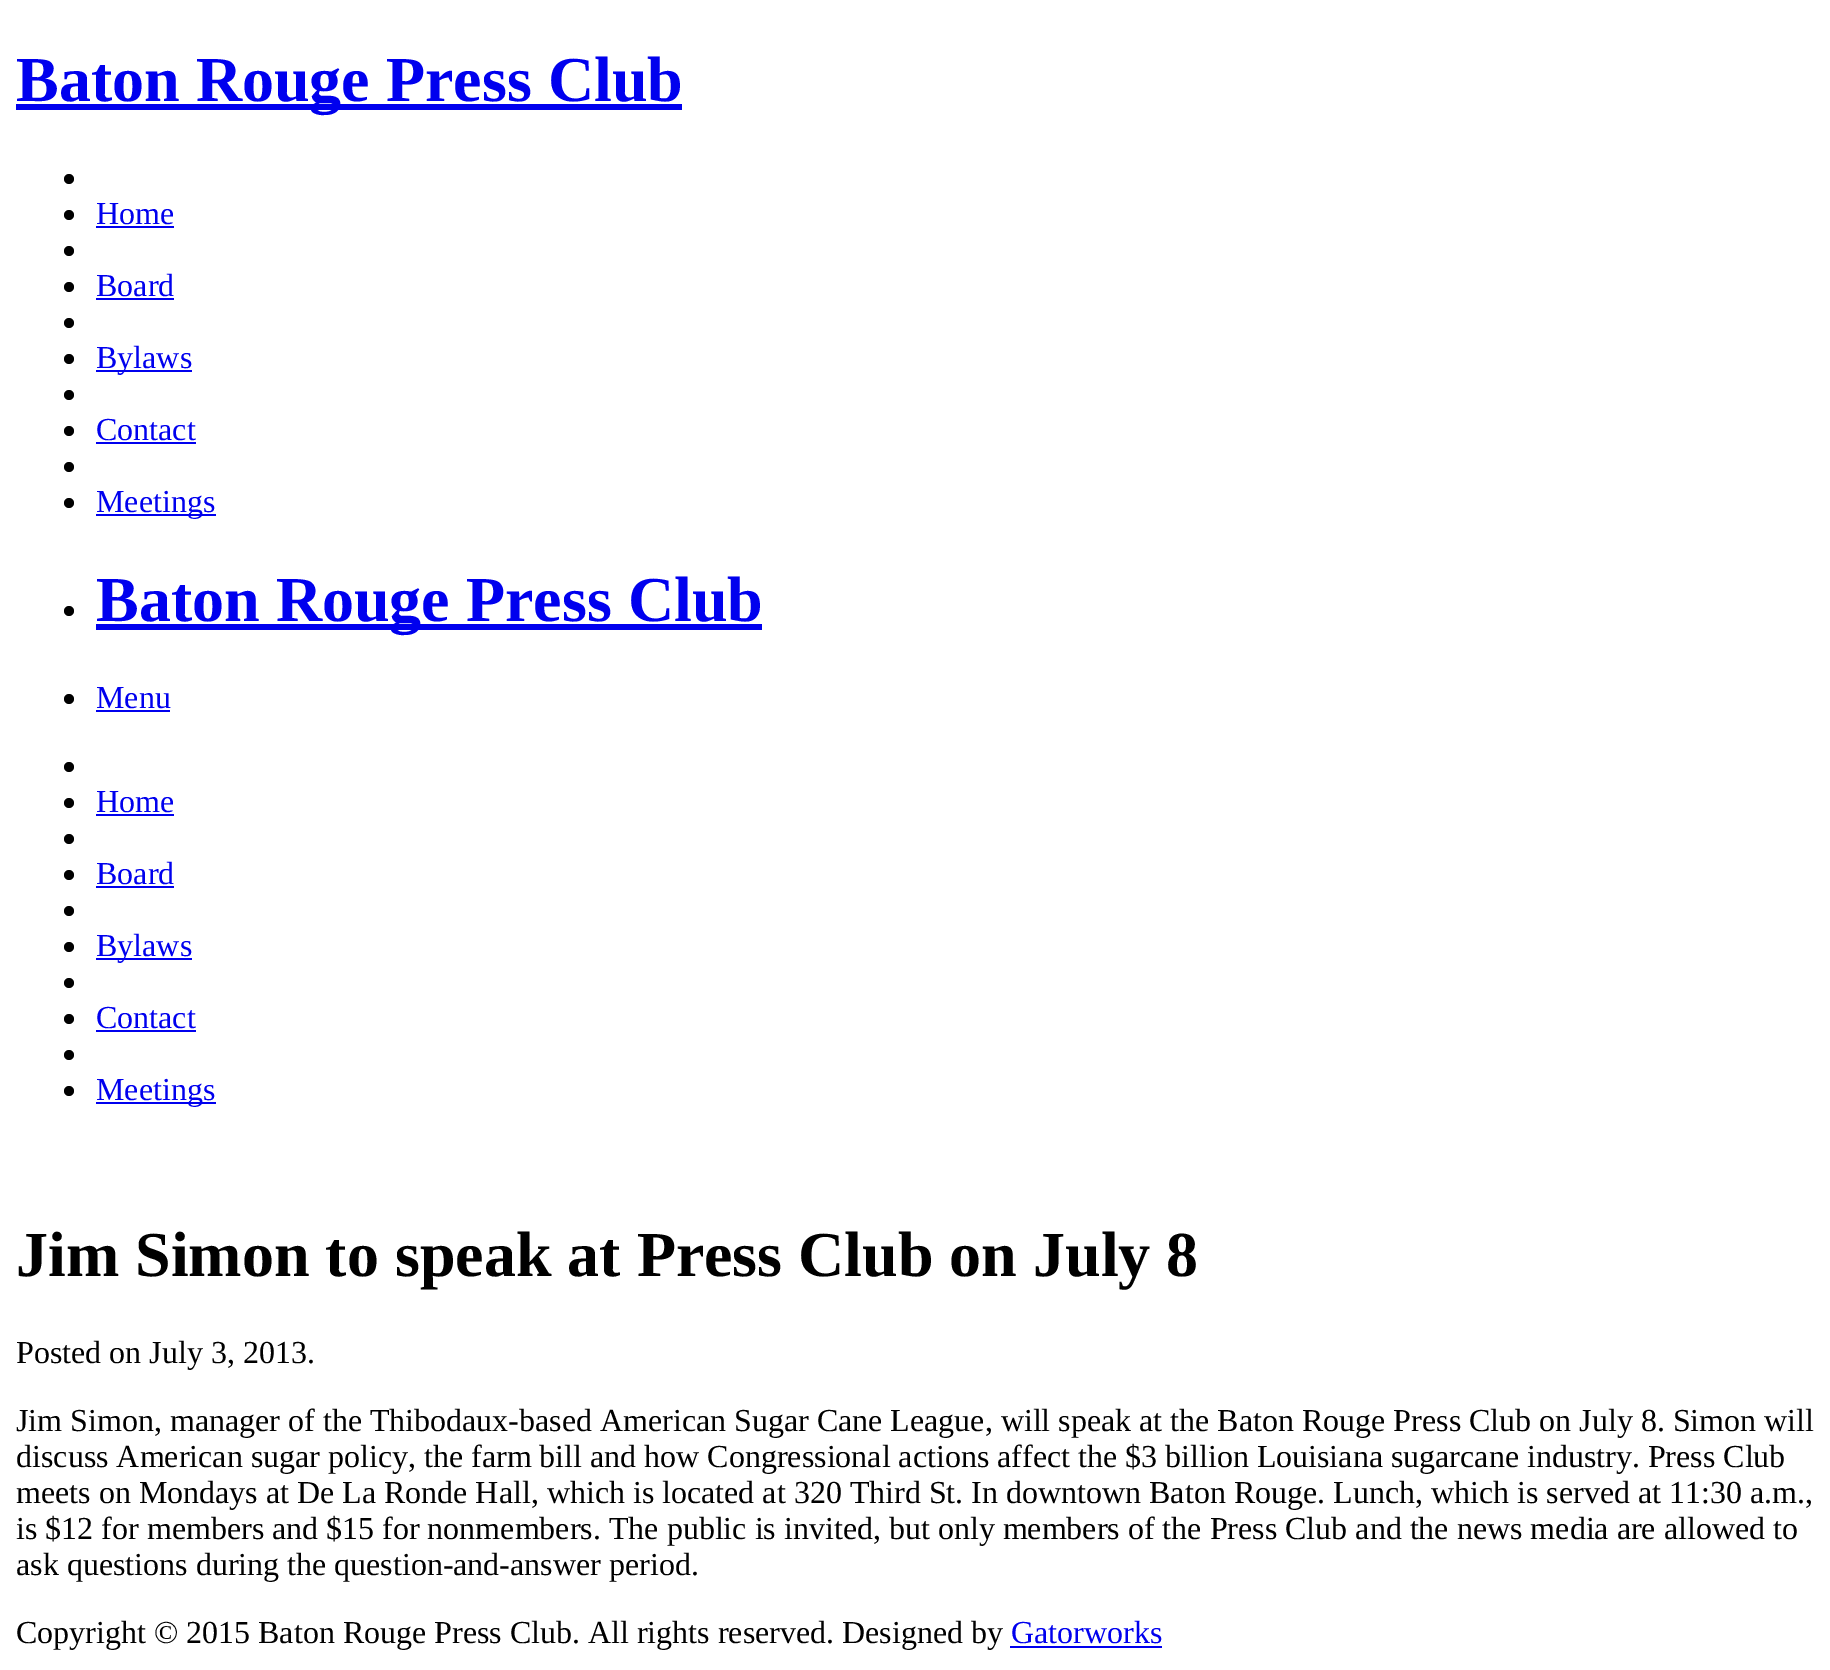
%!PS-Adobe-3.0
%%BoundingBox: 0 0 1830 1670
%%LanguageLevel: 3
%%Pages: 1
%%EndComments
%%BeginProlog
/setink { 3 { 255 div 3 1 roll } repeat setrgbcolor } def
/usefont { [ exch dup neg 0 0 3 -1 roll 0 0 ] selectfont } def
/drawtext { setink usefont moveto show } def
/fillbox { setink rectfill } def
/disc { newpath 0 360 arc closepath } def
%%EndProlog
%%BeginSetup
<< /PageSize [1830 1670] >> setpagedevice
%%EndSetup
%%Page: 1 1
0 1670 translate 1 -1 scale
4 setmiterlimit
0 0 1830 1670 255 255 255 fillbox
16 104 666 6 0 0 238 fillbox
(Baton Rouge Press Club) 16 101 /LiberationSerif-Bold 64 0 0 238 drawtext
0 0 0 setink
69 179 5 disc fill
69 215 5 disc fill
(Home) 96 224 /LiberationSerif-Regular 32 0 0 238 drawtext
96 226 78 2 0 0 238 fillbox
0 0 0 setink
69 251 5 disc fill
69 287 5 disc fill
(Board) 96 296 /LiberationSerif-Regular 32 0 0 238 drawtext
96 298 78 2 0 0 238 fillbox
0 0 0 setink
69 323 5 disc fill
69 359 5 disc fill
96 370 96 2 0 0 238 fillbox
(Bylaws) 96 368 /LiberationSerif-Regular 32 0 0 238 drawtext
0 0 0 setink
69 395 5 disc fill
69 431 5 disc fill
(Contact) 96 440 /LiberationSerif-Regular 32 0 0 238 drawtext
96 442 100 2 0 0 238 fillbox
0 0 0 setink
69 467 5 disc fill
69 503 5 disc fill
96 514 120 2 0 0 238 fillbox
(Meetings) 96 512 /LiberationSerif-Regular 32 0 0 238 drawtext
0 0 0 setink
69 611 5 disc fill
96 624 666 6 0 0 238 fillbox
(Baton Rouge Press Club) 96 621 /LiberationSerif-Bold 64 0 0 238 drawtext
0 0 0 setink
69 699 5 disc fill
(Menu) 96 708 /LiberationSerif-Regular 32 0 0 238 drawtext
96 710 74 2 0 0 238 fillbox
0 0 0 setink
69 767 5 disc fill
69 803 5 disc fill
(Home) 96 812 /LiberationSerif-Regular 32 0 0 238 drawtext
96 814 78 2 0 0 238 fillbox
0 0 0 setink
69 839 5 disc fill
69 875 5 disc fill
(Board) 96 884 /LiberationSerif-Regular 32 0 0 238 drawtext
96 886 78 2 0 0 238 fillbox
0 0 0 setink
69 911 5 disc fill
69 947 5 disc fill
96 958 96 2 0 0 238 fillbox
(Bylaws) 96 956 /LiberationSerif-Regular 32 0 0 238 drawtext
0 0 0 setink
69 983 5 disc fill
69 1019 5 disc fill
(Contact) 96 1028 /LiberationSerif-Regular 32 0 0 238 drawtext
96 1030 100 2 0 0 238 fillbox
0 0 0 setink
69 1055 5 disc fill
69 1091 5 disc fill
96 1102 120 2 0 0 238 fillbox
(Meetings) 96 1100 /LiberationSerif-Regular 32 0 0 238 drawtext
(Jim Simon to speak at Press Club on July 8) 16 1276 /LiberationSerif-Bold 64 0 0 0 drawtext
(Posted on July 3, 2013.) 16 1363 /LiberationSerif-Regular 32 0 0 0 drawtext
(Jim Simon, manager of the Thibodaux-based American Sugar Cane League, will speak at the Baton Rouge Press Club on July 8. Simon will) 16 1431 /LiberationSerif-Regular 32 0 0 0 drawtext
(discuss American sugar policy, the farm bill and how Congressional actions affect the $3 billion Louisiana sugarcane industry. Press Club) 16 1467 /LiberationSerif-Regular 32 0 0 0 drawtext
(meets on Mondays at De La Ronde Hall, which is located at 320 Third St. In downtown Baton Rouge. Lunch, which is served at 11:30 a.m.,) 16 1503 /LiberationSerif-Regular 32 0 0 0 drawtext
(is $12 for members and $15 for nonmembers. The public is invited, but only members of the Press Club and the news media are allowed to) 16 1539 /LiberationSerif-Regular 32 0 0 0 drawtext
(ask questions during the question-and-answer period.) 16 1575 /LiberationSerif-Regular 32 0 0 0 drawtext
(Copyright © 2015 Baton Rouge Press Club. All rights reserved. Designed by) 16 1643 /LiberationSerif-Regular 32 0 0 0 drawtext
(Gatorworks) 1011 1643 /LiberationSerif-Regular 32 0 0 238 drawtext
1010 1646 152 2 0 0 238 fillbox
showpage
%%EOF
